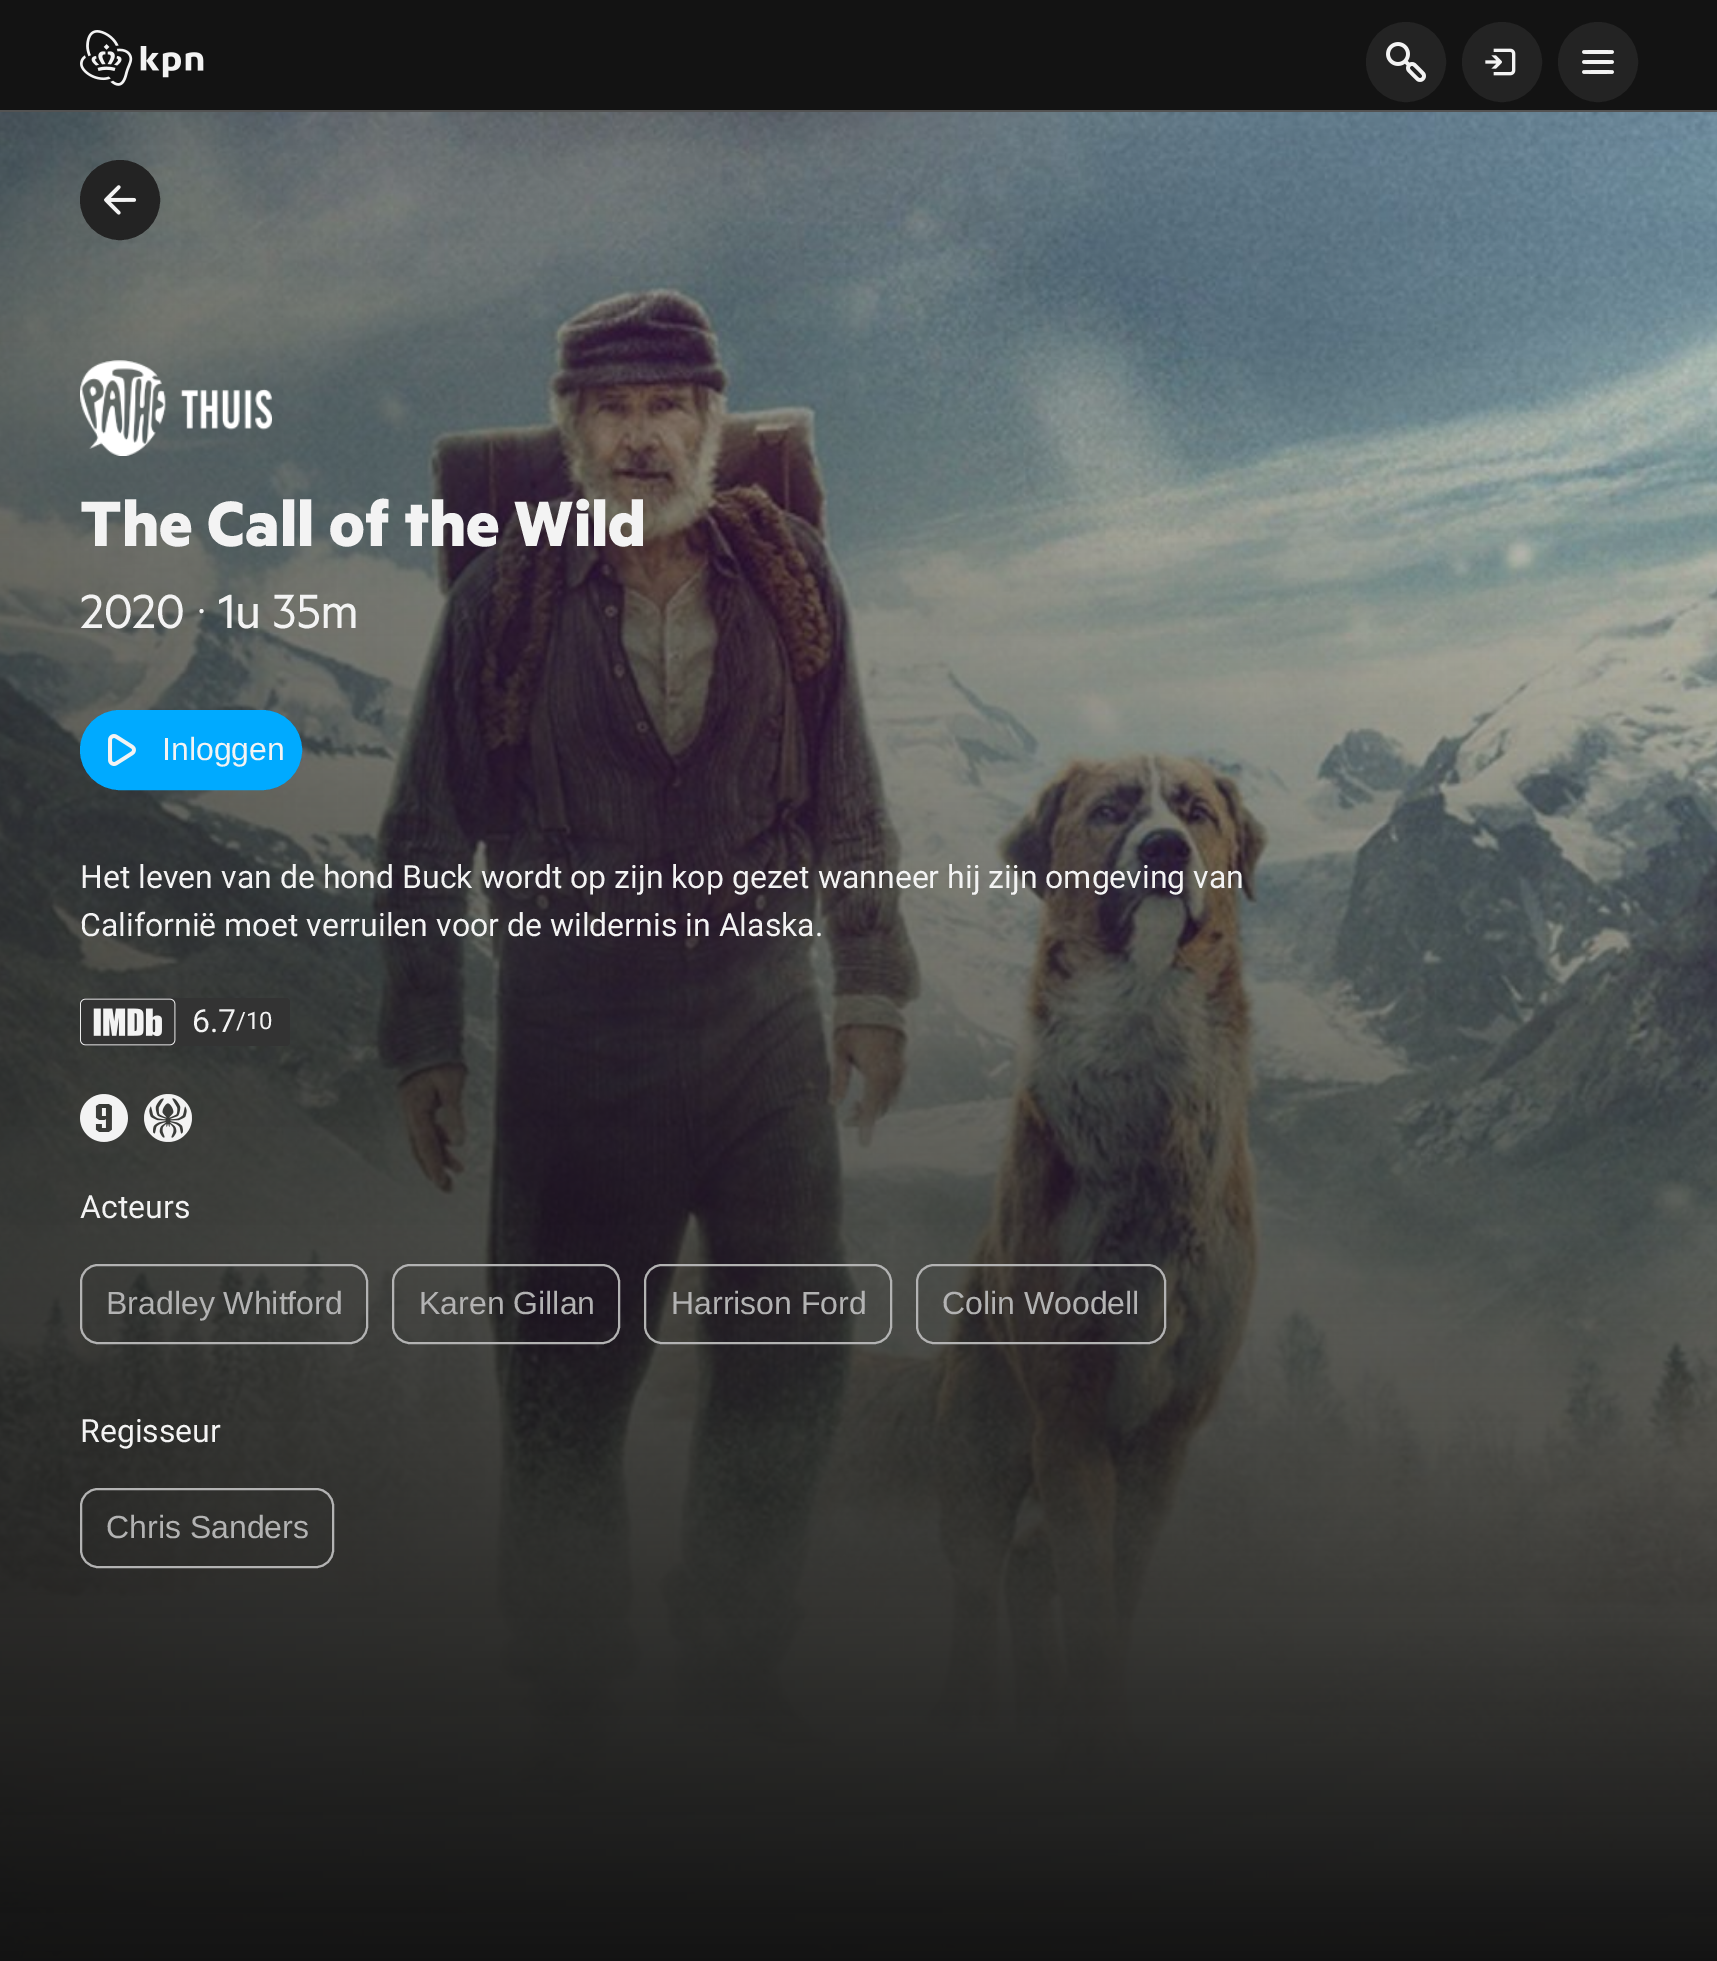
%!PS-Adobe-3.0
%%BoundingBox: 0 0 1717 1961
%%LanguageLevel: 3
%%Pages: 1
%%EndComments
%%BeginProlog
/setink { 3 { 255 div 3 1 roll } repeat setrgbcolor } def
/usefont { [ exch dup neg 0 0 3 -1 roll 0 0 ] selectfont } def
/drawtext { setink usefont moveto show } def
/fillbox { setink rectfill } def
/disc { newpath 0 360 arc closepath } def
/rrect { 5 dict begin { /r /h /w /y /x } { exch def } forall
  x r add y moveto x w add y 2 copy h add r arct x w add y h add x 1 index r arct
  x y h add x y r arct x y 2 copy exch w add exch r arct closepath end } def
/drawimage { 5 dict begin { /h /w /y /x /name } { exch def } forall
  gsave x y translate w h scale
  w h 8 [w 0 0 h 0 0] name (r) file false 3 colorimage grestore end } def
%%EndProlog
%%BeginSetup
<< /PageSize [1717 1961] >> setpagedevice
%%EndSetup
%%Page: 1 1
0 1961 translate 1 -1 scale
4 setmiterlimit
0 0 1717 1961 19 19 19 fillbox
0 110 1717 2 83 83 83 fillbox
(assets/img1.rgb) 80 30 124 56 drawimage
35 35 35 setink
1406 62 39 disc gsave fill grestore
2 setlinewidth
stroke
(assets/img2.rgb) 1386 42 40 40 drawimage
1502 62 39 disc gsave fill grestore
stroke
(assets/img3.rgb) 1485 48 31 28 drawimage
1598 62 39 disc gsave fill grestore
stroke
(assets/img4.rgb) 1582 50 32 24 drawimage
(assets/img5.rgb) 0 112 1717 1849 drawimage
120 200 39 disc gsave fill grestore
stroke
(assets/img6.rgb) 104 185 33 30 drawimage
(assets/img7.rgb) 80 360 192 96 drawimage
(The Call of the Wild) 80 546 /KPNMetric-Bold 72 243 243 243 drawtext
(2020) 80 628 /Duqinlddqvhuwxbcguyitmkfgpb-Regular 54 243 243 243 drawtext
(‧) 197 628 /Roboto-Light 54 243 243 243 drawtext
(1u 35m) 218 628 /Duqinlddqvhuwxbcguyitmkfgpb-Regular 54 243 243 243 drawtext
0 170 255 setink
81 711 220 78 39 rrect gsave fill grestore
stroke
(assets/img8.rgb) 108 734 28 32 drawimage
(Inloggen) 162 760 /LiberationSans-Regular 32 243 243 243 drawtext
(Het leven van de hond Buck wordt op zijn kop gezet wanneer hij zijn omgeving van) 80 888 /Roboto-Regular 32 243 243 243 drawtext
(Californië moet verruilen voor de wildernis in Alaska.) 80 936 /Roboto-Regular 32 243 243 243 drawtext
51 51 51 setink
80 998 210 48 4 rrect fill
(assets/img9.rgb) 80 998 96 48 drawimage
(6.7) 192 1032 /Roboto-Regular 32 243 243 243 drawtext
(/10) 236 1029 /Roboto-Regular 24 243 243 243 drawtext
(assets/img10.rgb) 80 1094 48 48 drawimage
(assets/img11.rgb) 144 1094 48 48 drawimage
(Acteurs) 80 1218 /Roboto-Regular 32 243 243 243 drawtext
179 179 179 setink
81 1265 286 78 17 rrect stroke
(Bradley Whitford) 106 1314 /LiberationSans-Regular 32 179 179 179 drawtext
393 1265 226 78 17 rrect stroke
(Karen Gillan) 419 1314 /LiberationSans-Regular 32 179 179 179 drawtext
645 1265 246 78 17 rrect stroke
(Harrison Ford) 671 1314 /LiberationSans-Regular 32 179 179 179 drawtext
917 1265 248 78 17 rrect stroke
(Colin Woodell) 942 1314 /LiberationSans-Regular 32 179 179 179 drawtext
(Regisseur) 80 1442 /Roboto-Regular 32 243 243 243 drawtext
179 179 179 setink
81 1489 252 78 17 rrect stroke
(Chris Sanders) 106 1538 /LiberationSans-Regular 32 179 179 179 drawtext
showpage
%%EOF
